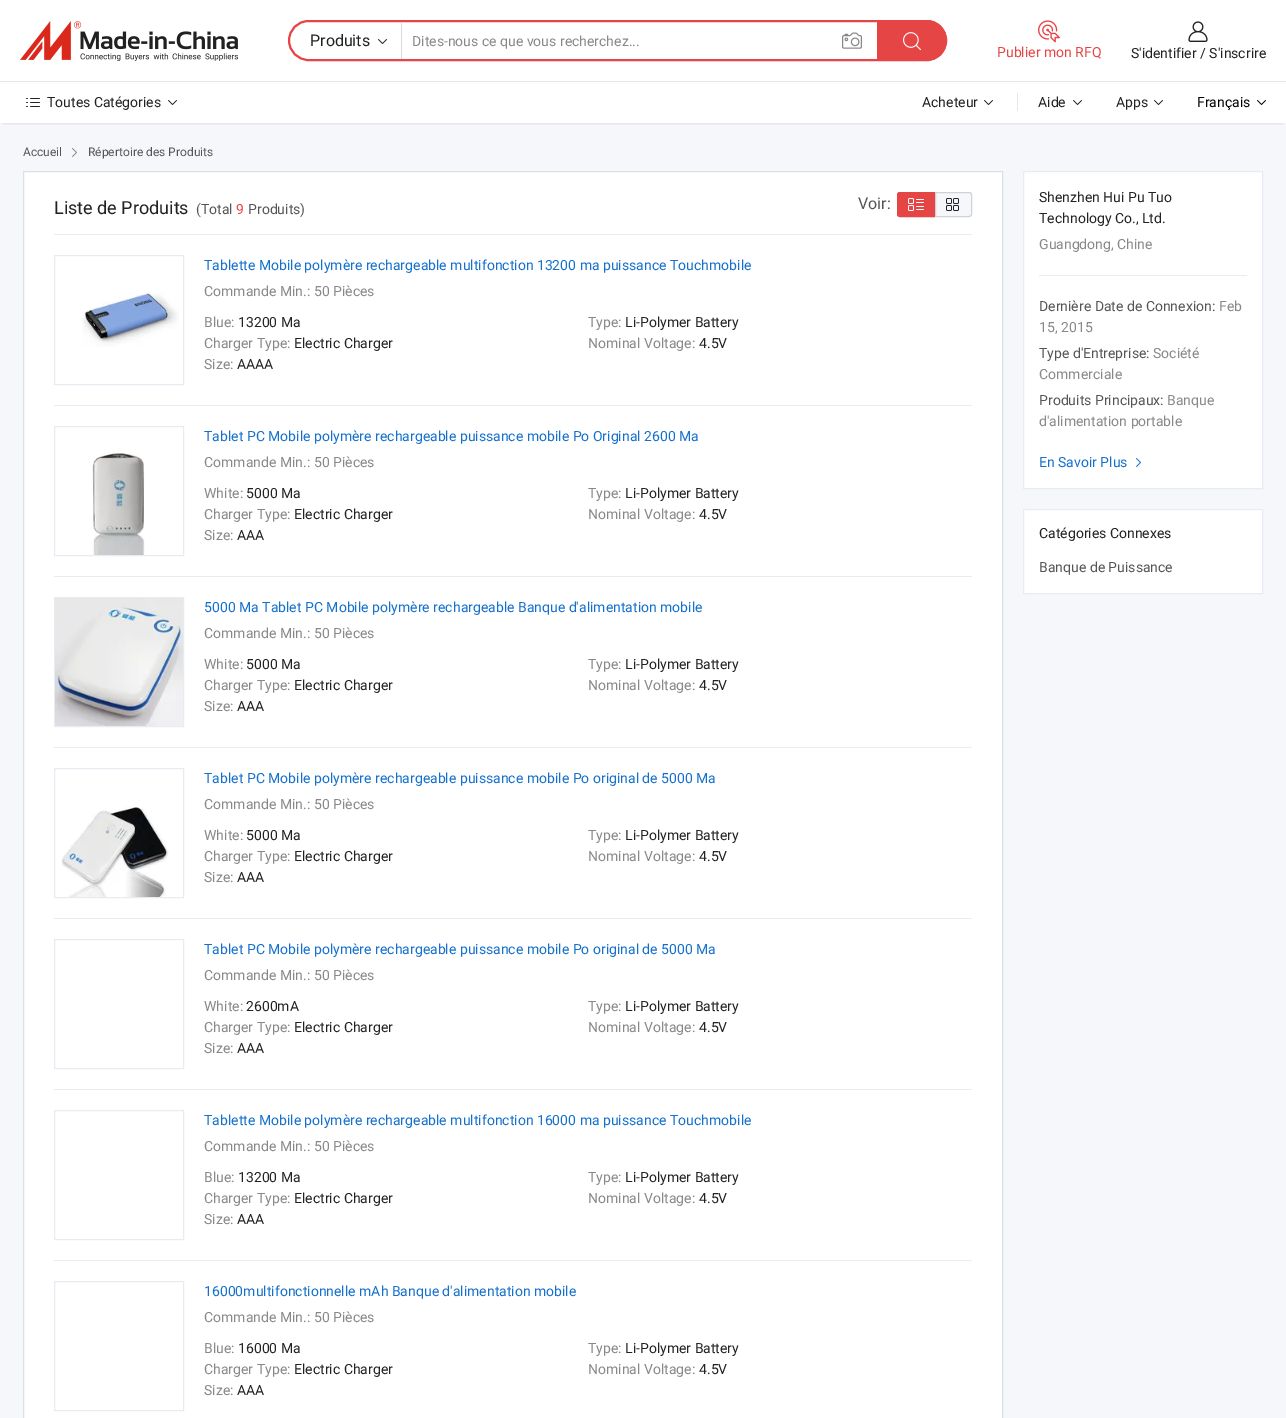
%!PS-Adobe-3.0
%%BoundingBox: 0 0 1286 1418
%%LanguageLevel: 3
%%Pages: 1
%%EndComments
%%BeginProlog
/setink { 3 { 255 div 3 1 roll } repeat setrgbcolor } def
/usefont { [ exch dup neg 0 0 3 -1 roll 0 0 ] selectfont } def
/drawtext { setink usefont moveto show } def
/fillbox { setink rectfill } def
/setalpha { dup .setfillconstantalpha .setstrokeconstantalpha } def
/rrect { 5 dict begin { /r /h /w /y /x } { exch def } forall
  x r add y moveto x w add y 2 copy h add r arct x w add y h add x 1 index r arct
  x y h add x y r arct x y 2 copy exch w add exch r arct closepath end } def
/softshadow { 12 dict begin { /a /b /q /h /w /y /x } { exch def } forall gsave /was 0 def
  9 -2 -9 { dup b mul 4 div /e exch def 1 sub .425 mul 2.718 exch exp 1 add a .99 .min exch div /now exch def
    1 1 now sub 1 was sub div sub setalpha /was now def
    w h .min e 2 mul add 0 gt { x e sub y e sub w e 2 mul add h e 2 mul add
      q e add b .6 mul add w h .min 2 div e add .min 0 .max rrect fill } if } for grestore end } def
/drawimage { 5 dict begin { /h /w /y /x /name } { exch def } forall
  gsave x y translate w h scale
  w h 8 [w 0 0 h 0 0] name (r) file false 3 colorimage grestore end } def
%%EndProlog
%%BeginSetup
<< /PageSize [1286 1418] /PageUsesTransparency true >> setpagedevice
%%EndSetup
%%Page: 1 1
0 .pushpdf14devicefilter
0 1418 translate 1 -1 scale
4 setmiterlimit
0 0 1286 1418 255 255 255 fillbox
0 123 1286 1295 245 247 250 fillbox
gsave
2 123 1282 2 rectclip
0 0 0 setink
3 6 1280 117 0 2.5 0.12 softshadow
grestore
(assets/img1.rgb) 20 21 218 40 drawimage
230 69 69 setink
2 setlinewidth
289 21 657 39 19.5 rrect stroke
401 22 1 37 218 218 218 fillbox
(Produits) 310 46 /Roboto-Regular 16 34 34 34 drawtext
(assets/img2.rgb) 378 39 9 5 drawimage
(Dites-nous ce que vous recherchez...) 412 46 /Roboto-Regular 14 136 136 136 drawtext
(assets/img3.rgb) 842 32 20 17 drawimage
230 69 69 setink
877 20 moveto 926.5 20 lineto 938 20 947 29 947 40.5 curveto 947 52 938 61 926.5 61 curveto 877 61 lineto closepath fill
(assets/img4.rgb) 903 32 18 19 drawimage
(assets/img5.rgb) 1038 20 22 23 drawimage
(Publier mon RFQ) 997 57 /Roboto-Regular 14 230 69 69 drawtext
(assets/img6.rgb) 1188 21 20 21 drawimage
(S'identifier / S'inscrire) 1131 58 /Roboto-Regular 14 34 34 34 drawtext
0 81 1286 1 230 231 235 fillbox
(assets/img7.rgb) 26 98 14 9 drawimage
(Toutes Catégories) 47 107 /Roboto-Regular 14 34 34 34 drawtext
(assets/img2.rgb) 168 100 9 5 drawimage
(Acheteur) 922 107 /Roboto-Regular 14 34 34 34 drawtext
(assets/img2.rgb) 984 100 9 5 drawimage
1017 93 1 18 230 231 235 fillbox
(Aide) 1038 107 /Roboto-Regular 14 34 34 34 drawtext
(assets/img2.rgb) 1073 100 9 5 drawimage
(Apps) 1116 107 /Roboto-Regular 14 34 34 34 drawtext
(assets/img2.rgb) 1154 100 9 5 drawimage
(Français) 1197 107 /Roboto-Regular 14 0 0 0 drawtext
(assets/img8.rgb) 1257 100 9 5 drawimage
(Accueil) 23 156 /Roboto-Regular 12 85 85 85 drawtext
(assets/img9.rgb) 72 148 5 9 drawimage
(Répertoire des Produits) 88 156 /Roboto-Regular 12 85 85 85 drawtext
255 255 255 setink
23.5 171.5 moveto 1002.5 171.5 lineto 1002.5 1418.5 lineto 23.5 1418.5 lineto closepath gsave fill grestore
218 224 230 setink
1 setlinewidth
stroke
54 234 918 1 230 236 242 fillbox
(Liste de Produits) 54 214 /Roboto-Regular 18 34 34 34 drawtext
(\(Total) 196 214 /Roboto-Regular 14 85 85 85 drawtext
(9) 236 214 /Roboto-Regular 14 230 69 69 drawtext
(Produits\)) 248 214 /Roboto-Regular 14 85 85 85 drawtext
(Voir:) 858 209 /Roboto-Regular 16 85 85 85 drawtext
230 69 69 setink
900 192.5 moveto 934.5 192.5 lineto 934.5 216.5 lineto 900 216.5 lineto 898.5 216.5 897.5 215.5 897.5 214 curveto 897.5 195 lineto 897.5 193.5 898.5 192.5 900 192.5 curveto closepath gsave fill grestore
stroke
(assets/img10.rgb) 908 198 16 13 drawimage
245 247 250 setink
935.5 192.5 moveto 969 192.5 lineto 970.5 192.5 971.5 193.5 971.5 195 curveto 971.5 214 lineto 971.5 215.5 970.5 216.5 969 216.5 curveto 935.5 216.5 lineto closepath gsave fill grestore
206 211 217 setink
stroke
(assets/img11.rgb) 946 198 13 13 drawimage
54 405 918 1 230 236 242 fillbox
54.5 255.5 129 129 rectstroke
(assets/img12.rgb) 82 291 97 56 drawimage
(Tablette Mobile polymère rechargeable multifonction 13200 ma puissance Touchmobile) 204 270 /Roboto-Regular 14 20 112 204 drawtext
(Commande Min.: 50 Pièces) 204 296 /Roboto-Regular 14 136 136 136 drawtext
(Blue:) 204 327 /Roboto-Regular 14 136 136 136 drawtext
(13200 Ma) 238 327 /Roboto-Regular 14 34 34 34 drawtext
(Type:) 588 327 /Roboto-Regular 14 136 136 136 drawtext
(Li-Polymer Battery) 625 327 /Roboto-Regular 14 34 34 34 drawtext
(Charger Type:) 204 348 /Roboto-Regular 14 136 136 136 drawtext
(Electric Charger) 294 348 /Roboto-Regular 14 34 34 34 drawtext
(Nominal Voltage:) 588 348 /Roboto-Regular 14 136 136 136 drawtext
(4.5V) 699 348 /Roboto-Regular 14 34 34 34 drawtext
(Size:) 204 369 /Roboto-Regular 14 136 136 136 drawtext
(AAAA) 237 369 /Roboto-Regular 14 34 34 34 drawtext
54 576 918 1 230 236 242 fillbox
54.5 426.5 129 129 rectstroke
(assets/img13.rgb) 92 453 53 102 drawimage
(Tablet PC Mobile polymère rechargeable puissance mobile Po Original 2600 Ma) 204 441 /Roboto-Regular 14 20 112 204 drawtext
(Commande Min.: 50 Pièces) 204 467 /Roboto-Regular 14 136 136 136 drawtext
(White:) 204 498 /Roboto-Regular 14 136 136 136 drawtext
(5000 Ma) 246 498 /Roboto-Regular 14 34 34 34 drawtext
(Type:) 588 498 /Roboto-Regular 14 136 136 136 drawtext
(Li-Polymer Battery) 625 498 /Roboto-Regular 14 34 34 34 drawtext
(Charger Type:) 204 519 /Roboto-Regular 14 136 136 136 drawtext
(Electric Charger) 294 519 /Roboto-Regular 14 34 34 34 drawtext
(Nominal Voltage:) 588 519 /Roboto-Regular 14 136 136 136 drawtext
(4.5V) 699 519 /Roboto-Regular 14 34 34 34 drawtext
(Size:) 204 540 /Roboto-Regular 14 136 136 136 drawtext
(AAA) 237 540 /Roboto-Regular 14 34 34 34 drawtext
54 747 918 1 230 236 242 fillbox
54.5 597.5 129 129 rectstroke
(assets/img14.rgb) 55 598 128 128 drawimage
(5000 Ma Tablet PC Mobile polymère rechargeable Banque d'alimentation mobile) 204 612 /Roboto-Regular 14 20 112 204 drawtext
(Commande Min.: 50 Pièces) 204 638 /Roboto-Regular 14 136 136 136 drawtext
(White:) 204 669 /Roboto-Regular 14 136 136 136 drawtext
(5000 Ma) 246 669 /Roboto-Regular 14 34 34 34 drawtext
(Type:) 588 669 /Roboto-Regular 14 136 136 136 drawtext
(Li-Polymer Battery) 625 669 /Roboto-Regular 14 34 34 34 drawtext
(Charger Type:) 204 690 /Roboto-Regular 14 136 136 136 drawtext
(Electric Charger) 294 690 /Roboto-Regular 14 34 34 34 drawtext
(Nominal Voltage:) 588 690 /Roboto-Regular 14 136 136 136 drawtext
(4.5V) 699 690 /Roboto-Regular 14 34 34 34 drawtext
(Size:) 204 711 /Roboto-Regular 14 136 136 136 drawtext
(AAA) 237 711 /Roboto-Regular 14 34 34 34 drawtext
54 918 918 1 230 236 242 fillbox
54.5 768.5 129 129 rectstroke
(assets/img15.rgb) 61 807 108 90 drawimage
(Tablet PC Mobile polymère rechargeable puissance mobile Po original de 5000 Ma) 204 783 /Roboto-Regular 14 20 112 204 drawtext
(Commande Min.: 50 Pièces) 204 809 /Roboto-Regular 14 136 136 136 drawtext
(White:) 204 840 /Roboto-Regular 14 136 136 136 drawtext
(5000 Ma) 246 840 /Roboto-Regular 14 34 34 34 drawtext
(Type:) 588 840 /Roboto-Regular 14 136 136 136 drawtext
(Li-Polymer Battery) 625 840 /Roboto-Regular 14 34 34 34 drawtext
(Charger Type:) 204 861 /Roboto-Regular 14 136 136 136 drawtext
(Electric Charger) 294 861 /Roboto-Regular 14 34 34 34 drawtext
(Nominal Voltage:) 588 861 /Roboto-Regular 14 136 136 136 drawtext
(4.5V) 699 861 /Roboto-Regular 14 34 34 34 drawtext
(Size:) 204 882 /Roboto-Regular 14 136 136 136 drawtext
(AAA) 237 882 /Roboto-Regular 14 34 34 34 drawtext
54 1089 918 1 230 236 242 fillbox
54.5 939.5 129 129 rectstroke
(Tablet PC Mobile polymère rechargeable puissance mobile Po original de 5000 Ma) 204 954 /Roboto-Regular 14 20 112 204 drawtext
(Commande Min.: 50 Pièces) 204 980 /Roboto-Regular 14 136 136 136 drawtext
(White:) 204 1011 /Roboto-Regular 14 136 136 136 drawtext
(2600mA) 246 1011 /Roboto-Regular 14 34 34 34 drawtext
(Type:) 588 1011 /Roboto-Regular 14 136 136 136 drawtext
(Li-Polymer Battery) 625 1011 /Roboto-Regular 14 34 34 34 drawtext
(Charger Type:) 204 1032 /Roboto-Regular 14 136 136 136 drawtext
(Electric Charger) 294 1032 /Roboto-Regular 14 34 34 34 drawtext
(Nominal Voltage:) 588 1032 /Roboto-Regular 14 136 136 136 drawtext
(4.5V) 699 1032 /Roboto-Regular 14 34 34 34 drawtext
(Size:) 204 1053 /Roboto-Regular 14 136 136 136 drawtext
(AAA) 237 1053 /Roboto-Regular 14 34 34 34 drawtext
54 1260 918 1 230 236 242 fillbox
54.5 1110.5 129 129 rectstroke
(Tablette Mobile polymère rechargeable multifonction 16000 ma puissance Touchmobile) 204 1125 /Roboto-Regular 14 20 112 204 drawtext
(Commande Min.: 50 Pièces) 204 1151 /Roboto-Regular 14 136 136 136 drawtext
(Blue:) 204 1182 /Roboto-Regular 14 136 136 136 drawtext
(13200 Ma) 238 1182 /Roboto-Regular 14 34 34 34 drawtext
(Type:) 588 1182 /Roboto-Regular 14 136 136 136 drawtext
(Li-Polymer Battery) 625 1182 /Roboto-Regular 14 34 34 34 drawtext
(Charger Type:) 204 1203 /Roboto-Regular 14 136 136 136 drawtext
(Electric Charger) 294 1203 /Roboto-Regular 14 34 34 34 drawtext
(Nominal Voltage:) 588 1203 /Roboto-Regular 14 136 136 136 drawtext
(4.5V) 699 1203 /Roboto-Regular 14 34 34 34 drawtext
(Size:) 204 1224 /Roboto-Regular 14 136 136 136 drawtext
(AAA) 237 1224 /Roboto-Regular 14 34 34 34 drawtext
230 236 242 setink
54.5 1281.5 129 129 rectstroke
(16000multifonctionnelle mAh Banque d'alimentation mobile) 204 1296 /Roboto-Regular 14 20 112 204 drawtext
(Commande Min.: 50 Pièces) 204 1322 /Roboto-Regular 14 136 136 136 drawtext
(Blue:) 204 1353 /Roboto-Regular 14 136 136 136 drawtext
(16000 Ma) 238 1353 /Roboto-Regular 14 34 34 34 drawtext
(Type:) 588 1353 /Roboto-Regular 14 136 136 136 drawtext
(Li-Polymer Battery) 625 1353 /Roboto-Regular 14 34 34 34 drawtext
(Charger Type:) 204 1374 /Roboto-Regular 14 136 136 136 drawtext
(Electric Charger) 294 1374 /Roboto-Regular 14 34 34 34 drawtext
(Nominal Voltage:) 588 1374 /Roboto-Regular 14 136 136 136 drawtext
(4.5V) 699 1374 /Roboto-Regular 14 34 34 34 drawtext
(Size:) 204 1395 /Roboto-Regular 14 136 136 136 drawtext
(AAA) 237 1395 /Roboto-Regular 14 34 34 34 drawtext
255 255 255 setink
1023.5 171.5 moveto 1262.5 171.5 lineto 1262.5 488.5 lineto 1023.5 488.5 lineto closepath gsave fill grestore
230 236 242 setink
stroke
(Shenzhen Hui Pu Tuo) 1039 202 /Roboto-Regular 14 34 34 34 drawtext
(Technology Co., Ltd.) 1039 223 /Roboto-Regular 14 34 34 34 drawtext
(Guangdong, Chine) 1039 249 /Roboto-Regular 14 136 136 136 drawtext
1039 275 208 1 230 236 242 fillbox
(Dernière Date de Connexion:) 1039 311 /Roboto-Regular 14 85 85 85 drawtext
(Feb) 1219 311 /Roboto-Regular 14 136 136 136 drawtext
(15, 2015) 1039 332 /Roboto-Regular 14 136 136 136 drawtext
(Type d'Entreprise:) 1039 358 /Roboto-Regular 14 85 85 85 drawtext
(Société) 1153 358 /Roboto-Regular 14 136 136 136 drawtext
(Commerciale) 1039 379 /Roboto-Regular 14 136 136 136 drawtext
(Produits Principaux:) 1039 405 /Roboto-Regular 14 85 85 85 drawtext
(Banque) 1167 405 /Roboto-Regular 14 136 136 136 drawtext
(d'alimentation portable) 1039 426 /Roboto-Regular 14 136 136 136 drawtext
(En Savoir Plus) 1039 467 /Roboto-Regular 14 20 112 204 drawtext
(assets/img16.rgb) 1136 458 5 9 drawimage
255 255 255 setink
1023.5 509.5 moveto 1262.5 509.5 lineto 1262.5 593.5 lineto 1023.5 593.5 lineto closepath gsave fill grestore
230 236 242 setink
stroke
(Catégories Connexes) 1039 538 /Roboto-Regular 14 34 34 34 drawtext
(Banque de Puissance) 1039 572 /Roboto-Regular 14 85 85 85 drawtext
.poppdf14devicefilter showpage
%%EOF
